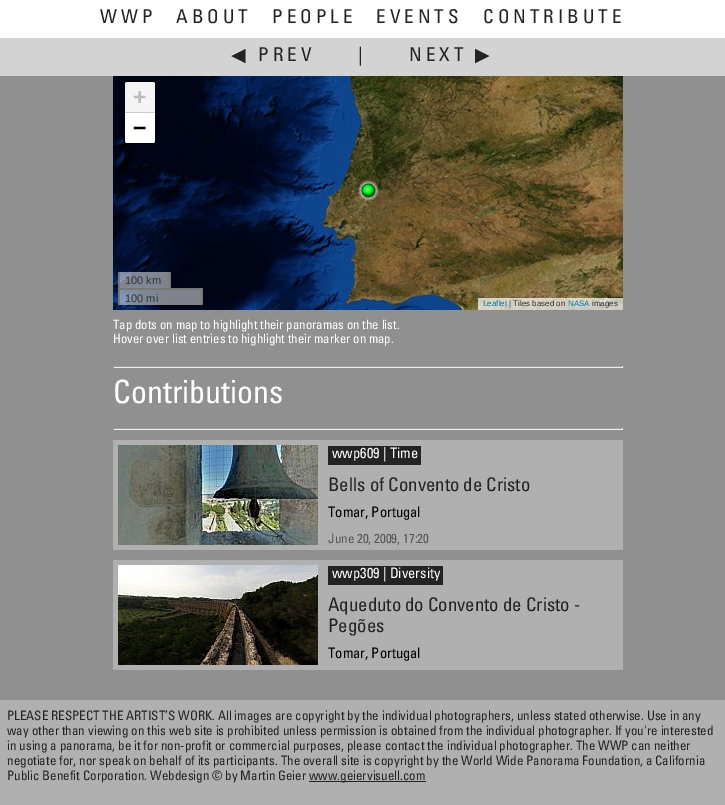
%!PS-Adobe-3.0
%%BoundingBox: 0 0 725 805
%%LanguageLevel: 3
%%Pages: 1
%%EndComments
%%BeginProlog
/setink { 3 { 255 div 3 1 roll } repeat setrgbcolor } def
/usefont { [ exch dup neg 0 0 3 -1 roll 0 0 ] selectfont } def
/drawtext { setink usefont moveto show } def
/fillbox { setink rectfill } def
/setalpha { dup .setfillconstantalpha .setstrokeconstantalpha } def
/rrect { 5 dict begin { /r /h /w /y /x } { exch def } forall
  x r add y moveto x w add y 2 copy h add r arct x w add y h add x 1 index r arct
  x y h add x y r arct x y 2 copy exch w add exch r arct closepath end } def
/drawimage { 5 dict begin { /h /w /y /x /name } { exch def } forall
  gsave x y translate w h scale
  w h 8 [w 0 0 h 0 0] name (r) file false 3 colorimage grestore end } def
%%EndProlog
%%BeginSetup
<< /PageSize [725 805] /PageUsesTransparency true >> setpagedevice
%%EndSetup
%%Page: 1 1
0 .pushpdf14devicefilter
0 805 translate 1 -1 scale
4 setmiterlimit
0 0 725 805 144 144 144 fillbox
0 0 725 38 255 255 255 fillbox
/Univers-Regular 19 usefont
35 35 35 setink
100 23 moveto 4 0 (WWP) ashow
176 23 moveto 4 0 (ABOUT) ashow
272 23 moveto 4 0 (PEOPLE) ashow
376 23 moveto 4 0 (EVENTS) ashow
483 23 moveto 4 0 (CONTRIBUTE) ashow
0 38 725 38 211 211 211 fillbox
/DejaVuSans-Regular 19 usefont
35 35 35 setink
231 61 moveto 4 0 (◀) ashow
/Univers-Regular 19 usefont
258 61 moveto 4 0 (PREV) ashow
358 61 moveto 4 0 (|) ashow
409 61 moveto 4 0 (NEXT) ashow
/DejaVuSans-Regular 19 usefont
475 61 moveto 4 0 (▶) ashow
(assets/img1.rgb) 113 76 130 120 drawimage
(assets/img2.rgb) 243 76 256 120 drawimage
(assets/img3.rgb) 499 76 124 120 drawimage
(assets/img4.rgb) 113 196 130 114 drawimage
(assets/img5.rgb) 243 196 256 114 drawimage
(assets/img6.rgb) 499 196 124 114 drawimage
(assets/img7.rgb) 358 180 21 21 drawimage
(assets/img8.rgb) 361 183 15 15 drawimage
0.2 setalpha
0 0 0 setink
2 setlinewidth
124 81 32 63 3 rrect stroke
1 setalpha
244 244 244 setink
127 82 moveto 153 82 lineto 154 82 155 83 155 84 curveto 155 113 lineto 125 113 lineto 125 84 lineto 125 83 126 82 127 82 curveto closepath fill
125 112 30 1 204 204 204 fillbox
(+) 133 104 /DejaVuSansMono-Bold 22 187 187 187 drawtext
255 255 255 setink
125 113 moveto 155 113 lineto 155 141 lineto 155 142 154 143 153 143 curveto 127 143 lineto 126 143 125 142 125 141 curveto closepath fill
(−) 133 135 /DejaVuSansMono-Bold 22 0 0 0 drawtext
0.5 setalpha
120 272 49 16 255 255 255 fillbox
1 setalpha
169 272 2 18 119 119 119 fillbox
118 272 2 18 119 119 119 fillbox
(100 km) 125 284 /LiberationSans-Regular 11 51 51 51 drawtext
0.5 setalpha
120 290 81 15 255 255 255 fillbox
1 setalpha
118 288 85 2 119 119 119 fillbox
201 288 2 17 119 119 119 fillbox
118 288 2 17 119 119 119 fillbox
(100 mi) 125 302 /LiberationSans-Regular 11 51 51 51 drawtext
0.7 setalpha
478 298 145 12 255 255 255 fillbox
1 setalpha
(Leaflet) 483 306 /LiberationSans-Regular 8 0 120 168 drawtext
(| Tiles based on) 509 306 /LiberationSans-Regular 8 51 51 51 drawtext
(NASA) 568 306 /LiberationSans-Regular 8 0 120 168 drawtext
(images) 592 306 /LiberationSans-Regular 8 51 51 51 drawtext
(Tap dots on map to highlight their panoramas on the list.) 113 329 /Univers-Regular 12.8 255 255 255 drawtext
(Hover over list entries to highlight their marker on map.) 113 343 /Univers-Regular 12.8 255 255 255 drawtext
113 366 510 1 159 159 159 fillbox
622 366 1 2 238 238 238 fillbox
113 367 510 1 238 238 238 fillbox
113 366 1 2 159 159 159 fillbox
(Contributions) 113 403 /Univers-Regular 32 255 255 255 drawtext
113 428 510 1 159 159 159 fillbox
622 428 1 2 238 238 238 fillbox
113 429 510 1 238 238 238 fillbox
113 428 1 2 159 159 159 fillbox
113 440 510 110 176 176 176 fillbox
(assets/img9.rgb) 118 445 200 100 drawimage
328 446 93 19 35 35 35 fillbox
(wwp609 | Time) 332 458 /Univers-Regular 14.5 255 255 255 drawtext
(Bells of Convento de Cristo) 328 491 /Univers-Regular 18.75 35 35 35 drawtext
(Tomar, Portugal) 328 517 /Univers-Regular 14.5 0 0 0 drawtext
(June 20, 2009, 17:20) 328 543 /Univers-Regular 13 85 85 85 drawtext
113 560 510 110 176 176 176 fillbox
(assets/img10.rgb) 118 565 200 100 drawimage
328 566 115 19 35 35 35 fillbox
(wwp309 | Diversity) 332 578 /Univers-Regular 14.5 255 255 255 drawtext
(Aqueduto do Convento de Cristo -) 328 611 /Univers-Regular 18.75 35 35 35 drawtext
(Pegões) 328 632 /Univers-Regular 18.75 35 35 35 drawtext
(Tomar, Portugal) 328 658 /Univers-Regular 14.5 0 0 0 drawtext
0 700 725 105 176 176 176 fillbox
(PLEASE RESPECT THE ARTIST’S WORK. All images are copyright by the individual photographers, unless stated otherwise. Use in any) 7 720 /Univers-Regular 13 35 35 35 drawtext
(way other than viewing on this web site is prohibited unless permission is obtained from the individual photographer. If you're interested) 7 735 /Univers-Regular 13 35 35 35 drawtext
(in using a panorama, be it for non-profit or commercial purposes, please contact the individual photographer. The WWP can neither) 7 750 /Univers-Regular 13 35 35 35 drawtext
(negotiate for, nor speak on behalf of its participants. The overall site is copyright by the World Wide Panorama Foundation, a California) 7 765 /Univers-Regular 13 35 35 35 drawtext
(Public Benefit Corporation. Webdesign © by Martin Geier) 7 780 /Univers-Regular 13 35 35 35 drawtext
309 781 117 1 35 35 35 fillbox
(www.geiervisuell.com) 309 780 /Univers-Regular 13 35 35 35 drawtext
.poppdf14devicefilter showpage
%%EOF
